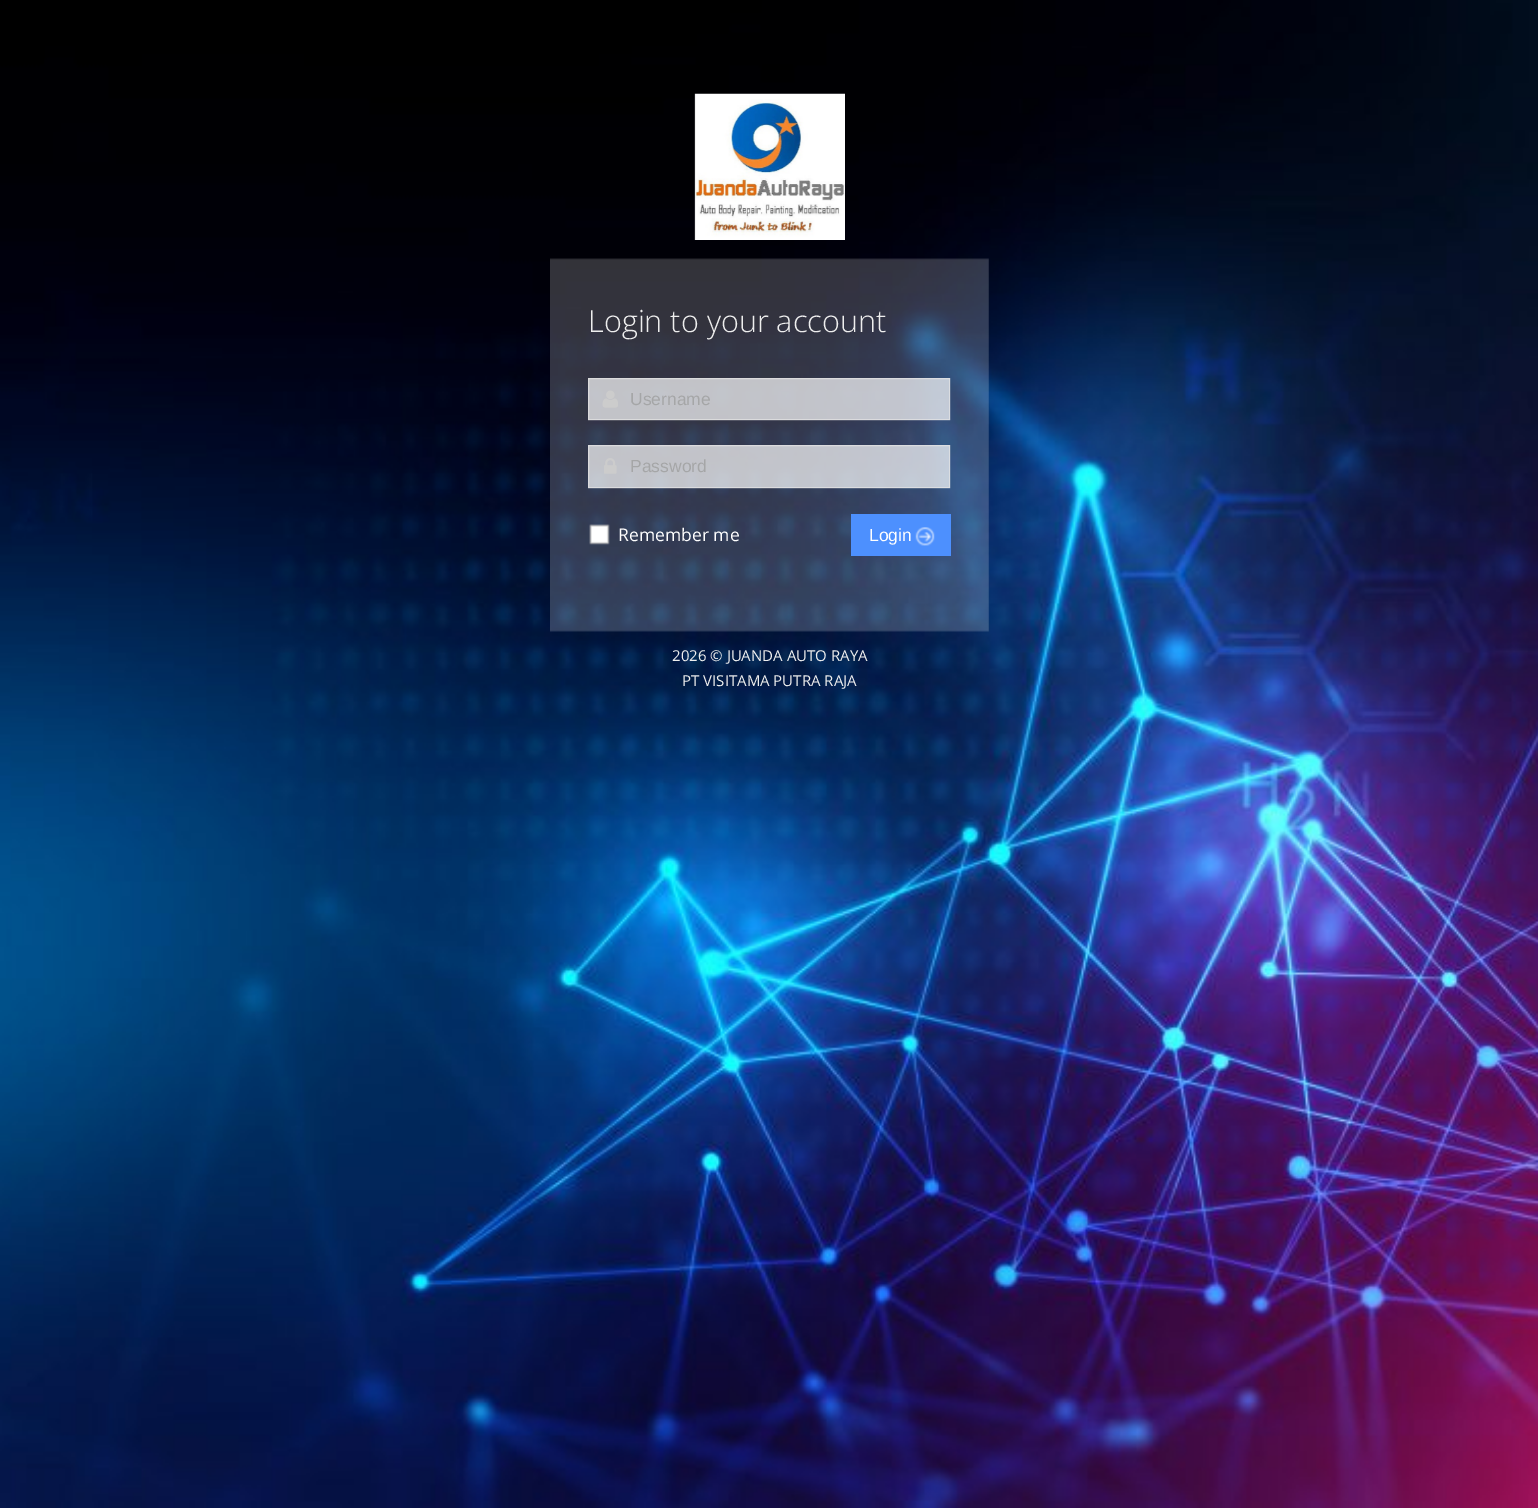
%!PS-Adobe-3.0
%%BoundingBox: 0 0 1538 1508
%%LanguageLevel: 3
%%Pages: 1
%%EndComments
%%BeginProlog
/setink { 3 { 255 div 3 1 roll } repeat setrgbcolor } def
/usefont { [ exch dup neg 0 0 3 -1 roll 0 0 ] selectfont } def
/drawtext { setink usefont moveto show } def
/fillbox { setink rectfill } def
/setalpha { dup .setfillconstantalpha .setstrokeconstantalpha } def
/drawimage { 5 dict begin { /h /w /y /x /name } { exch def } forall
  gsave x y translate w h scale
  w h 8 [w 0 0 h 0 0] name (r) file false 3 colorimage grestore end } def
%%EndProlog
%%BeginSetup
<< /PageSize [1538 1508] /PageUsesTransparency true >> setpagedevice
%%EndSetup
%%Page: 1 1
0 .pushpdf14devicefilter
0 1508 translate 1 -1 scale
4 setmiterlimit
0 0 1538 1508 255 255 255 fillbox
(assets/img1.rgb) 0 0 1538 1508 drawimage
(assets/img2.rgb) 694 93 151 147 drawimage
(assets/img3.rgb) 550 258 439 374 drawimage
(Login to your account) 588 332 /OpenSans-Light 30.6 238 238 238 drawtext
0.7 setalpha
588 378 362 42 255 255 255 fillbox
229 229 229 setink
588.5 378.5 361 41 rectstroke
1 setalpha
(assets/img4.rgb) 602 390 16 18 drawimage
(Username) 630 405 /LiberationSans-Regular 17.5 165 166 167 drawtext
0.7 setalpha
588 445 362 43 255 255 255 fillbox
229 229 229 setink
588.5 445.5 361 42 rectstroke
1 setalpha
(assets/img5.rgb) 604 458 13 16 drawimage
(Password) 630 472 /LiberationSans-Regular 17.5 165 166 167 drawtext
(assets/img6.rgb) 589 524 21 21 drawimage
(Remember me) 618 541 /OpenSans-Regular 17.5 255 255 255 drawtext
851 514 100 42 77 144 254 fillbox
(Login) 869 541 /LiberationSans-Regular 17.5 255 255 255 drawtext
(assets/img7.rgb) 915 527 20 19 drawimage
(2026 © JUANDA AUTO RAYA) 672 661 /OpenSans-Regular 15 238 238 238 drawtext
(PT VISITAMA PUTRA RAJA) 682 686 /OpenSans-Regular 15 238 238 238 drawtext
.poppdf14devicefilter showpage
%%EOF
